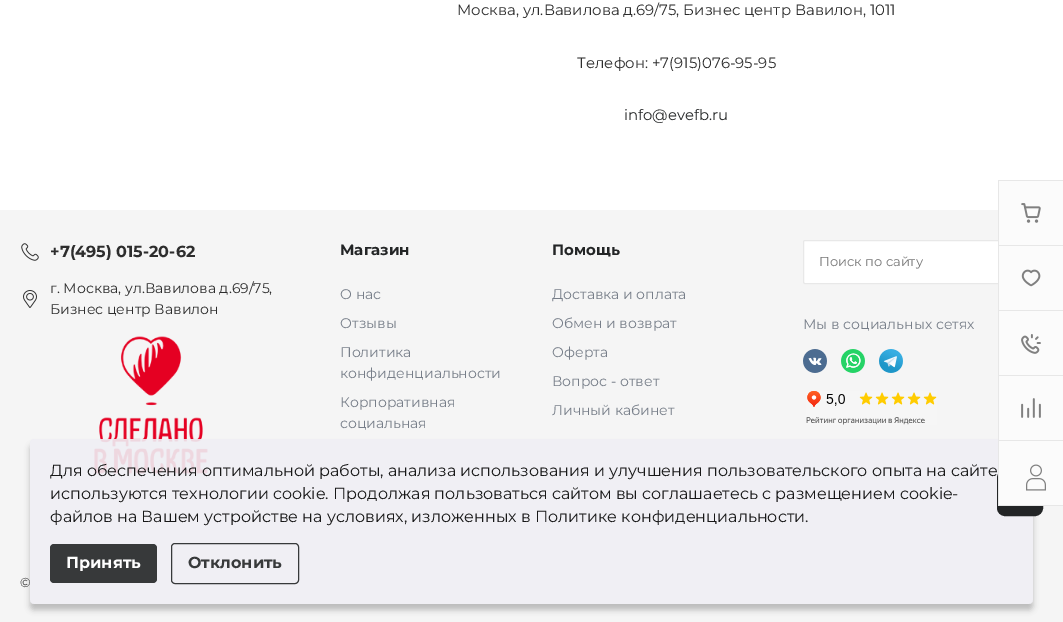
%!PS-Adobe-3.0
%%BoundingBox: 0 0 1063 622
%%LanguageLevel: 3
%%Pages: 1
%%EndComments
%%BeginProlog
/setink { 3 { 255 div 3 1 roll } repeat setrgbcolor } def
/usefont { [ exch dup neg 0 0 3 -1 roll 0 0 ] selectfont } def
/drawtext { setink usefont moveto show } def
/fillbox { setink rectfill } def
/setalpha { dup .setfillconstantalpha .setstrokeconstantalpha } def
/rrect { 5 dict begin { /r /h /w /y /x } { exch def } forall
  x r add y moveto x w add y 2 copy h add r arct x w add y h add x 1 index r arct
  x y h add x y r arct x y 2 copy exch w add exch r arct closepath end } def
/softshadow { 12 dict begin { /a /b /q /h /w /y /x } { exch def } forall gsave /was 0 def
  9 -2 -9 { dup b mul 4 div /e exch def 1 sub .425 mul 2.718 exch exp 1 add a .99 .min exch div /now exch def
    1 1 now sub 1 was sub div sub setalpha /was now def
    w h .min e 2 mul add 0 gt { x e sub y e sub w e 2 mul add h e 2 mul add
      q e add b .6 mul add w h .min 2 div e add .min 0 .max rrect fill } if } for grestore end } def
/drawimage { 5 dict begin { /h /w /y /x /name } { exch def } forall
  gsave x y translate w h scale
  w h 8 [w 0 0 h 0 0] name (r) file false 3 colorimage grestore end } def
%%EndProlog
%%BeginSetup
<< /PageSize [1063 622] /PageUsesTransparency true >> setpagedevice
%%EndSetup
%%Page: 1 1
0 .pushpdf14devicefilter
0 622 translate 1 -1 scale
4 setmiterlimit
0 0 1063 622 255 255 255 fillbox
(Москва, ул.Вавилова д.69/75, Бизнес центр Вавилон, 1011) 457 15 /Montserrat-Regular 14.9 45 45 45 drawtext
(Телефон: +7\(915\)076-95-95) 577 68 /Montserrat-Regular 14.9 45 45 45 drawtext
(info@evefb.ru) 624 120 /Montserrat-Regular 14.9 35 37 38 drawtext
0 210 1063 412 245 245 245 fillbox
(assets/img1.rgb) 21 243 18 18 drawimage
(+7\(495\) 015-20-62) 50 257 /Montserrat-Bold 16 45 45 45 drawtext
(assets/img2.rgb) 23 290 14 18 drawimage
(г. Москва, ул.Вавилова д.69/75,) 50 293 /Montserrat-Regular 14 45 45 45 drawtext
(Бизнес центр Вавилон) 50 314 /Montserrat-Regular 14 45 45 45 drawtext
(assets/img3.rgb) 94 336 114 138 drawimage
(Магазин) 340 255 /Montserrat-Bold 15 35 37 38 drawtext
(О нас) 340 299 /Montserrat-Regular 14 119 126 137 drawtext
(Отзывы) 340 328 /Montserrat-Regular 14 119 126 137 drawtext
(Политика) 340 357 /Montserrat-Regular 14 119 126 137 drawtext
(конфиденциальности) 340 378 /Montserrat-Regular 14 119 126 137 drawtext
(Корпоративная) 340 407 /Montserrat-Regular 14 119 126 137 drawtext
(социальная) 340 428 /Montserrat-Regular 14 119 126 137 drawtext
(Помощь) 552 255 /Montserrat-Bold 15 35 37 38 drawtext
gsave
552 256 191 198 rectclip
(Доставка и оплата) 552 299 /Montserrat-Regular 14 119 126 137 drawtext
grestore
(Обмен и возврат) 552 328 /Montserrat-Regular 14 119 126 137 drawtext
(Оферта) 552 357 /Montserrat-Regular 14 119 126 137 drawtext
(Вопрос - ответ) 552 386 /Montserrat-Regular 14 119 126 137 drawtext
(Личный кабинет) 552 415 /Montserrat-Regular 14 119 126 137 drawtext
255 255 255 setink
803.5 240.5 239 43 1.5 rrect gsave fill grestore
232 232 232 setink
stroke
(Поиск по сайту) 819 266 /Montserrat-Regular 13 117 117 117 drawtext
(Мы в социальных сетях) 803 329 /Montserrat-Regular 14 119 126 137 drawtext
(assets/img4.rgb) 803 349 24 24 drawimage
(assets/img5.rgb) 841 349 24 24 drawimage
(assets/img6.rgb) 879 349 24 24 drawimage
(assets/img7.rgb) 806 391 131 34 drawimage
(©) 20 587 /Montserrat-Regular 13 45 45 45 drawtext
gsave
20 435 moveto 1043 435 lineto 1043 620 lineto 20 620 lineto closepath 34 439 moveto 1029 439 lineto 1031 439 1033 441 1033 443 curveto 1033 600 lineto 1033 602 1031 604 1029 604 curveto 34 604 lineto 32 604 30 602 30 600 curveto 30 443 lineto 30 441 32 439 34 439 curveto closepath eoclip newpath
0 0 0 setink
30 445 1003 165 4 3 0.23 softshadow
grestore
0.9 setalpha
239 238 244 setink
30 439 1003 165 4 rrect fill
1 setalpha
35 37 38 setink
998 471 44 44 7 rrect gsave fill grestore
2 setlinewidth
stroke
999 181 64 324 251 251 251 fillbox
998 180 65 1 231 231 231 fillbox
998 505 65 1 231 231 231 fillbox
998 180 1 326 231 231 231 fillbox
999 245 64 1 231 231 231 fillbox
(assets/img8.rgb) 1021 203 20 20 drawimage
999 310 64 1 231 231 231 fillbox
(assets/img9.rgb) 1021 269 20 18 drawimage
999 375 64 1 231 231 231 fillbox
(assets/img10.rgb) 1021 334 20 20 drawimage
999 440 64 1 231 231 231 fillbox
(assets/img11.rgb) 1021 398 20 20 drawimage
(assets/img12.rgb) 1026 464 20 27 drawimage
(Для обеспечения оптимальной работы, анализа использования и улучшения пользовательского опыта на сайте) 50 476 /Montserrat-Regular 16 24 24 24 drawtext
(используются технологии cookie. Продолжая пользоваться сайтом вы соглашаетесь с размещением cookie-) 50 499 /Montserrat-Regular 16 24 24 24 drawtext
(файлов на Вашем устройстве на условиях, изложенных в Политике конфиденциальности.) 50 522 /Montserrat-Regular 16 24 24 24 drawtext
0.9 setalpha
35 37 38 setink
50 544 107 39 4 rrect fill
1 setalpha
(Принять) 66 568 /Montserrat-Bold 16 254 254 254 drawtext
0.9 setalpha
35 37 38 setink
1 setlinewidth
171.5 543.5 127 40 3.5 rrect stroke
1 setalpha
(Отклонить) 188 568 /Montserrat-Bold 16 56 58 59 drawtext
.poppdf14devicefilter showpage
%%EOF
